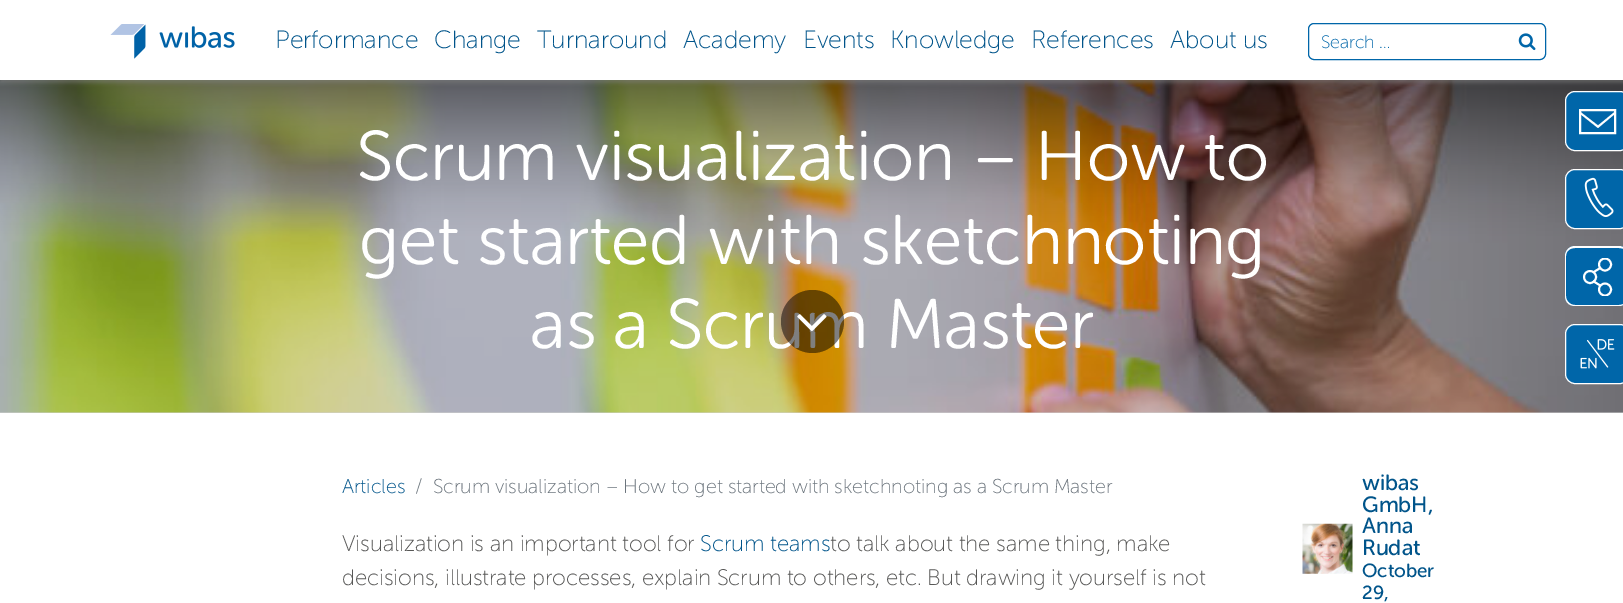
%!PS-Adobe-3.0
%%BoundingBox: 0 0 1623 603
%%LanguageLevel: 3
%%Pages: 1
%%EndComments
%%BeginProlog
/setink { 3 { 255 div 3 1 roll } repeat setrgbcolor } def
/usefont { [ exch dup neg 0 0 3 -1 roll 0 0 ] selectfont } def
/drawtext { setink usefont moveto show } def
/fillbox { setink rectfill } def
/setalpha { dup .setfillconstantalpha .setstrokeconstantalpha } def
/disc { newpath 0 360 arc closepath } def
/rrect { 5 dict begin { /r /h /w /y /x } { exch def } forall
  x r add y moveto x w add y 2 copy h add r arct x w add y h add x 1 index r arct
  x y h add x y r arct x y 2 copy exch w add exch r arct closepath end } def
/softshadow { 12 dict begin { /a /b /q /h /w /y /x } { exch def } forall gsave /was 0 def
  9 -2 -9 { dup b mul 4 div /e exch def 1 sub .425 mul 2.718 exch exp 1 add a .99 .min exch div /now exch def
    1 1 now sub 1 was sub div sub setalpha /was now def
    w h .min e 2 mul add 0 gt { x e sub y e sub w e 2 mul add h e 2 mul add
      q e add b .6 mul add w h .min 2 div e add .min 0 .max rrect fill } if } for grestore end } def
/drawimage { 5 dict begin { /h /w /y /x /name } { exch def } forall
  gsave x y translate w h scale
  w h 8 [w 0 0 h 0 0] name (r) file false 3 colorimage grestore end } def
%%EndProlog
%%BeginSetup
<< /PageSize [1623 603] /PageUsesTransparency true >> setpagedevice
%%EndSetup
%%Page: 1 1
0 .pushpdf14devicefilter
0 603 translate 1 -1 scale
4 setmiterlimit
0 0 1623 603 255 255 255 fillbox
0 412 1623 1 209 209 209 fillbox
(assets/img3.rgb) 0 80 1623 333 drawimage
132 132 132 setink
0 3 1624 80 0 2 0.5 softshadow
0 0 1623 80 255 255 255 fillbox
(assets/img1.rgb) 110 24 125 35 drawimage
(Performance) 275 48 /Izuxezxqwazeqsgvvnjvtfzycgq-ExtraLight 25 0 84 138 drawtext
(Change) 434 48 /Izuxezxqwazeqsgvvnjvtfzycgq-ExtraLight 25 0 84 138 drawtext
(Turnaround) 537 48 /Izuxezxqwazeqsgvvnjvtfzycgq-ExtraLight 25 0 84 138 drawtext
(Academy) 683 48 /Izuxezxqwazeqsgvvnjvtfzycgq-ExtraLight 25 0 84 138 drawtext
(Events) 803 48 /Izuxezxqwazeqsgvvnjvtfzycgq-ExtraLight 25 0 84 138 drawtext
(Knowledge) 890 48 /Izuxezxqwazeqsgvvnjvtfzycgq-ExtraLight 25 0 84 138 drawtext
(References) 1031 48 /Izuxezxqwazeqsgvvnjvtfzycgq-ExtraLight 25 0 84 138 drawtext
(About us) 1170 48 /Izuxezxqwazeqsgvvnjvtfzycgq-ExtraLight 25 0 84 138 drawtext
0 102 169 setink
1308.5 23.5 237 36 5.5 rrect stroke
(Search …) 1321 48 /Izuxezxqwazeqsgvvnjvtfzycgq-ExtraLight 18 0 102 169 drawtext
(assets/img2.rgb) 1518 33 18 18 drawimage
(Scrum visualization – How to) 356 180 /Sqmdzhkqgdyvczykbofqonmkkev-Light 70 255 255 255 drawtext
(get started with sketchnoting) 359 264 /Sqmdzhkqgdyvczykbofqonmkkev-Light 70 255 255 255 drawtext
(as a Scrum Master) 530 348 /Sqmdzhkqgdyvczykbofqonmkkev-Light 70 255 255 255 drawtext
0.5 setalpha
0 0 0 setink
812.5 321.5 31.5 disc fill
1 setalpha
(assets/img4.rgb) 797 314 30 18 drawimage
(Articles) 342 493 /Izuxezxqwazeqsgvvnjvtfzycgq-ExtraLight 20 0 84 138 drawtext
(/) 415 493 /Izuxezxqwazeqsgvvnjvtfzycgq-ExtraLight 20 108 117 125 drawtext
(Scrum visualization – How to get started with sketchnoting as a Scrum Master) 433 493 /Izuxezxqwazeqsgvvnjvtfzycgq-ExtraLight 20 108 117 125 drawtext
(Visualization is an important tool for) 342 551 /Izuxezxqwazeqsgvvnjvtfzycgq-ExtraLight 22.5 87 87 86 drawtext
(Scrum teams) 700 551 /Izuxezxqwazeqsgvvnjvtfzycgq-ExtraLight 22.5 0 84 138 drawtext
(to talk about the same thing, make) 830 551 /Izuxezxqwazeqsgvvnjvtfzycgq-ExtraLight 22.5 87 87 86 drawtext
(decisions, illustrate processes, explain Scrum to others, etc. But drawing it yourself is not) 342 585 /Izuxezxqwazeqsgvvnjvtfzycgq-ExtraLight 22.5 87 87 86 drawtext
(assets/img5.rgb) 1302 523 51 51 drawimage
(wibas) 1362 490 /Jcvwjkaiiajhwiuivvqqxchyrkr-Regular 22 0 84 138 drawtext
(GmbH,) 1362 512 /Jcvwjkaiiajhwiuivvqqxchyrkr-Regular 22 0 84 138 drawtext
(Anna) 1362 533 /Jcvwjkaiiajhwiuivvqqxchyrkr-Regular 22 0 84 138 drawtext
(Rudat) 1362 555 /Jcvwjkaiiajhwiuivvqqxchyrkr-Regular 22 0 84 138 drawtext
(October) 1362 577 /Jcvwjkaiiajhwiuivvqqxchyrkr-Regular 19 0 84 138 drawtext
(29,) 1362 599 /Jcvwjkaiiajhwiuivvqqxchyrkr-Regular 19 0 84 138 drawtext
0 102 169 setink
1565.5 91.5 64 59 9.5 rrect gsave fill grestore
255 255 255 setink
stroke
2 setlinewidth
1580 110 35 23 rectstroke
gsave
1579 109 37 25 rectclip
1580.5 110.5 moveto 1580.5 112 lineto 1598 125.5 lineto 1614.5 112 lineto 1614.5 110.5 lineto 1580.5 110.5 lineto 1579 108.5 moveto 1616 108.5 lineto 1616 113 lineto 1598 128 lineto 1579 113 lineto closepath fill
grestore
0 102 169 setink
1565.5 169.5 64 59 9.5 rrect gsave fill grestore
255 255 255 setink
1 setlinewidth
stroke
(assets/img6.rgb) 1584 177 30 40 drawimage
0 102 169 setink
1565 246 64 60 10 rrect fill
255 255 255 setink
1575 246 moveto 1619 246 lineto 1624 246 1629 251 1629 256 curveto 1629 296 lineto 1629 302 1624 306 1619 306 curveto 1575 306 lineto 1569 306 1565 302 1565 296 curveto 1565 256 lineto 1565 251 1569 246 1575 246 curveto closepath 1575 248 moveto 1619 248 lineto 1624 248 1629 251 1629 256 curveto 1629 296 lineto 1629 301 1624 305 1619 305 curveto 1575 305 lineto 1570 305 1566 301 1566 296 curveto 1566 256 lineto 1566 251 1570 248 1575 248 curveto closepath eofill
1.9 setlinewidth
1590 277 6 disc stroke
gsave
1579 258 37 38 rectclip
1605 264.5 6 disc stroke
1605 289.5 6 disc stroke
grestore
1593 272.5 moveto 1601 267.5 lineto 1593 281 moveto 1601 286 lineto stroke
0 102 169 setink
1565.5 324.5 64 59 9.5 rrect gsave fill grestore
255 255 255 setink
1 setlinewidth
stroke
(assets/img7.rgb) 1580 339 35 30 drawimage
.poppdf14devicefilter showpage
%%EOF
